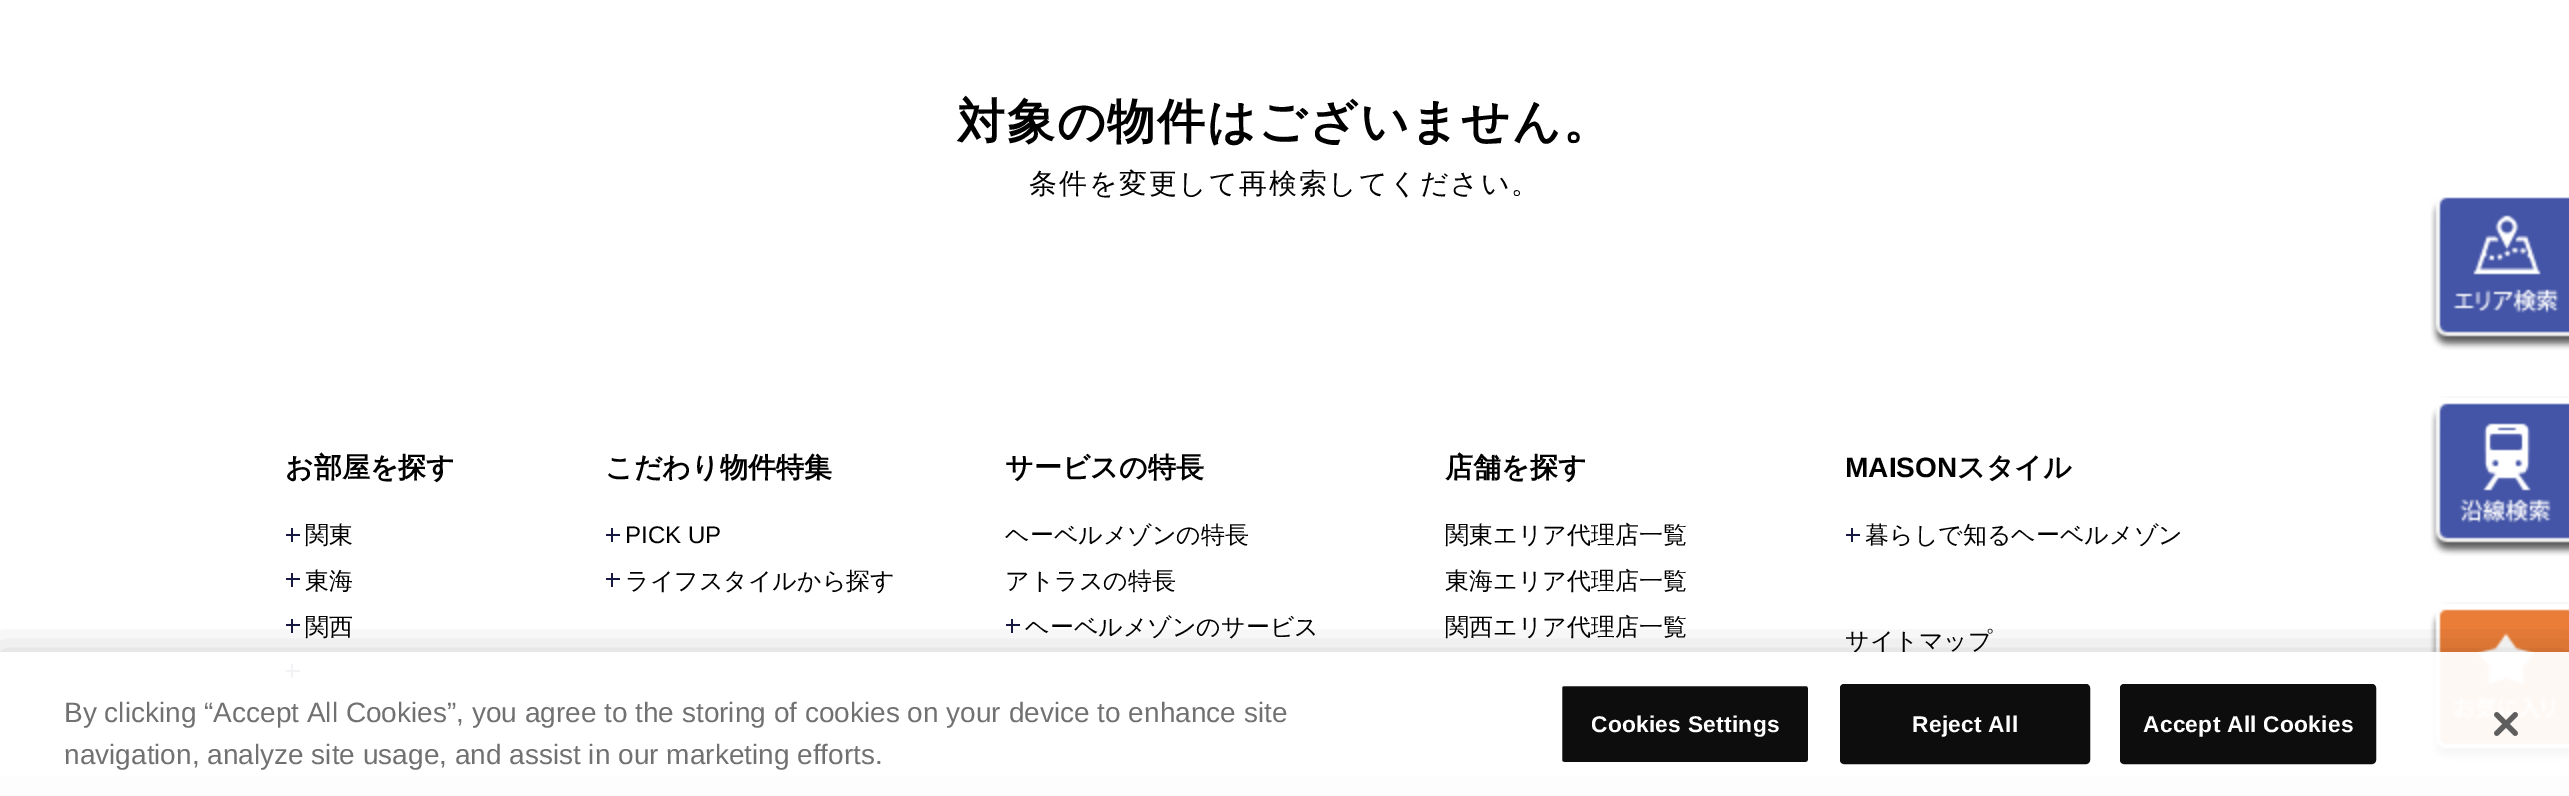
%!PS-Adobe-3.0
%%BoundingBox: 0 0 2569 796
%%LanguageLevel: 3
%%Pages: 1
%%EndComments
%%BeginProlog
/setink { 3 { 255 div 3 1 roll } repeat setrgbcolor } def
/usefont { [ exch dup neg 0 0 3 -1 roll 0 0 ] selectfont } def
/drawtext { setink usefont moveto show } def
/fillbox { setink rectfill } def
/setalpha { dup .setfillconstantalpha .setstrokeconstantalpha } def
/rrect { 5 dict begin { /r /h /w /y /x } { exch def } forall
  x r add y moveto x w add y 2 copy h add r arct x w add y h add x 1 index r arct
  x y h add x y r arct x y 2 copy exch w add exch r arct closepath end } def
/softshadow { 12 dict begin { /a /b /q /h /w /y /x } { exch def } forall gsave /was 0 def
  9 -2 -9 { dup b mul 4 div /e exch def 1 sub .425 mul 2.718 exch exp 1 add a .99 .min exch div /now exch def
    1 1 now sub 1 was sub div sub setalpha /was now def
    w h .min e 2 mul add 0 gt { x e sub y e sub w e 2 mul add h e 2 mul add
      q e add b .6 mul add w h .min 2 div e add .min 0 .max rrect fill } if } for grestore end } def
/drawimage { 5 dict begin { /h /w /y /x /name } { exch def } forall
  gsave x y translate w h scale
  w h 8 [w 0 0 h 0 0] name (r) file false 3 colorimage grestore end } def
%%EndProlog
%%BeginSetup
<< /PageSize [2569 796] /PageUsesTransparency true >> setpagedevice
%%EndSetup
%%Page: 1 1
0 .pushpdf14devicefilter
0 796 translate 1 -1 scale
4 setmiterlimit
0 0 2569 796 255 255 255 fillbox
/WenQuanYiZenHei-Bold 48 usefont
0 0 0 setink
957 138 moveto 1.75 0 (対象の物件はございません。) ashow
/WenQuanYiZenHei-Medium 28 usefont
1029 193 moveto 1.75 0 (条件を変更して再検索してください。) ashow
(お部屋を探す) 285 477 /WenQuanYiZenHei-Bold 28 0 0 0 drawtext
291 528 2 14 23 25 65 fillbox
(関東) 305 543 /WenQuanYiZenHei-Medium 24 0 0 0 drawtext
286 534 14 2 23 25 65 fillbox
291 573 2 14 23 25 65 fillbox
(東海) 305 589 /WenQuanYiZenHei-Medium 24 0 0 0 drawtext
286 578 14 2 23 25 65 fillbox
291 619 2 14 23 25 65 fillbox
(関西) 305 635 /WenQuanYiZenHei-Medium 24 0 0 0 drawtext
286 624 14 2 23 25 65 fillbox
291 664 2 14 23 25 65 fillbox
286 670 14 2 23 25 65 fillbox
(こだわり物件特集) 605 477 /WenQuanYiZenHei-Bold 28 0 0 0 drawtext
611 528 2 14 23 25 65 fillbox
(PICK UP) 625 543 /LiberationSans-Regular 24 0 0 0 drawtext
606 534 14 2 23 25 65 fillbox
611 573 2 14 23 25 65 fillbox
(ライフスタイルから探す) 625 589 /WenQuanYiZenHei-Medium 24 0 0 0 drawtext
606 578 14 2 23 25 65 fillbox
(サービスの特長) 1005 477 /WenQuanYiZenHei-Bold 28 0 0 0 drawtext
(ヘーベルメゾンの特長) 1005 543 /WenQuanYiZenHei-Medium 24 0 0 0 drawtext
(アトラスの特長) 1005 589 /WenQuanYiZenHei-Medium 24 0 0 0 drawtext
1011 619 2 14 23 25 65 fillbox
(ヘーベルメゾンのサービス) 1025 635 /WenQuanYiZenHei-Medium 24 0 0 0 drawtext
1006 624 14 2 23 25 65 fillbox
(店舗を探す) 1445 477 /WenQuanYiZenHei-Bold 28 0 0 0 drawtext
(関東エリア代理店一覧) 1445 543 /WenQuanYiZenHei-Medium 24 0 0 0 drawtext
(東海エリア代理店一覧) 1445 589 /WenQuanYiZenHei-Medium 24 0 0 0 drawtext
(関西エリア代理店一覧) 1445 635 /WenQuanYiZenHei-Medium 24 0 0 0 drawtext
(MAISON) 1845 477 /LiberationSans-Bold 28 0 0 0 drawtext
(スタイル) 1957 477 /WenQuanYiZenHei-Bold 28 0 0 0 drawtext
1851 528 2 14 23 25 65 fillbox
(暮らしで知るヘーベルメゾン) 1865 543 /WenQuanYiZenHei-Medium 24 0 0 0 drawtext
1846 534 14 2 23 25 65 fillbox
(サイトマップ) 1845 649 /WenQuanYiZenHei-Medium 24 0 0 0 drawtext
0 776 2569 20 221 221 221 fillbox
(assets/img1.rgb) 2430 197 139 153 drawimage
(assets/img2.rgb) 2430 396 139 160 drawimage
(assets/img3.rgb) 2430 602 139 160 drawimage
gsave
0 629 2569 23 rectclip
0 0 0 setink
0 652 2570 144 0 18 0.19 softshadow
grestore
0.95 setalpha
0 652 2569 144 255 255 255 fillbox
1 setalpha
(By clicking “Accept All Cookies”, you agree to the storing of cookies on your device to enhance site) 64 722 /LiberationSans-Regular 28 113 113 113 drawtext
(navigation, analyze site usage, and assist in our marketing efforts.) 64 764 /LiberationSans-Regular 28 113 113 113 drawtext
13 13 13 setink
1561 685 248 78 3 rrect gsave fill grestore
255 255 255 setink
2 setlinewidth
stroke
/LiberationSans-Bold 22.75 usefont
1591 732 moveto 0.25 0 (Cookies Settings) ashow
13 13 13 setink
1841 685 248 78 3 rrect gsave fill grestore
stroke
255 255 255 setink
1912 732 moveto 0.25 0 (Reject All) ashow
13 13 13 setink
2121 685 254 78 3 rrect gsave fill grestore
stroke
255 255 255 setink
2143 732 moveto 0.25 0 (Accept All Cookies) ashow
(assets/img4.rgb) 2494 712 24 24 drawimage
.poppdf14devicefilter showpage
%%EOF
